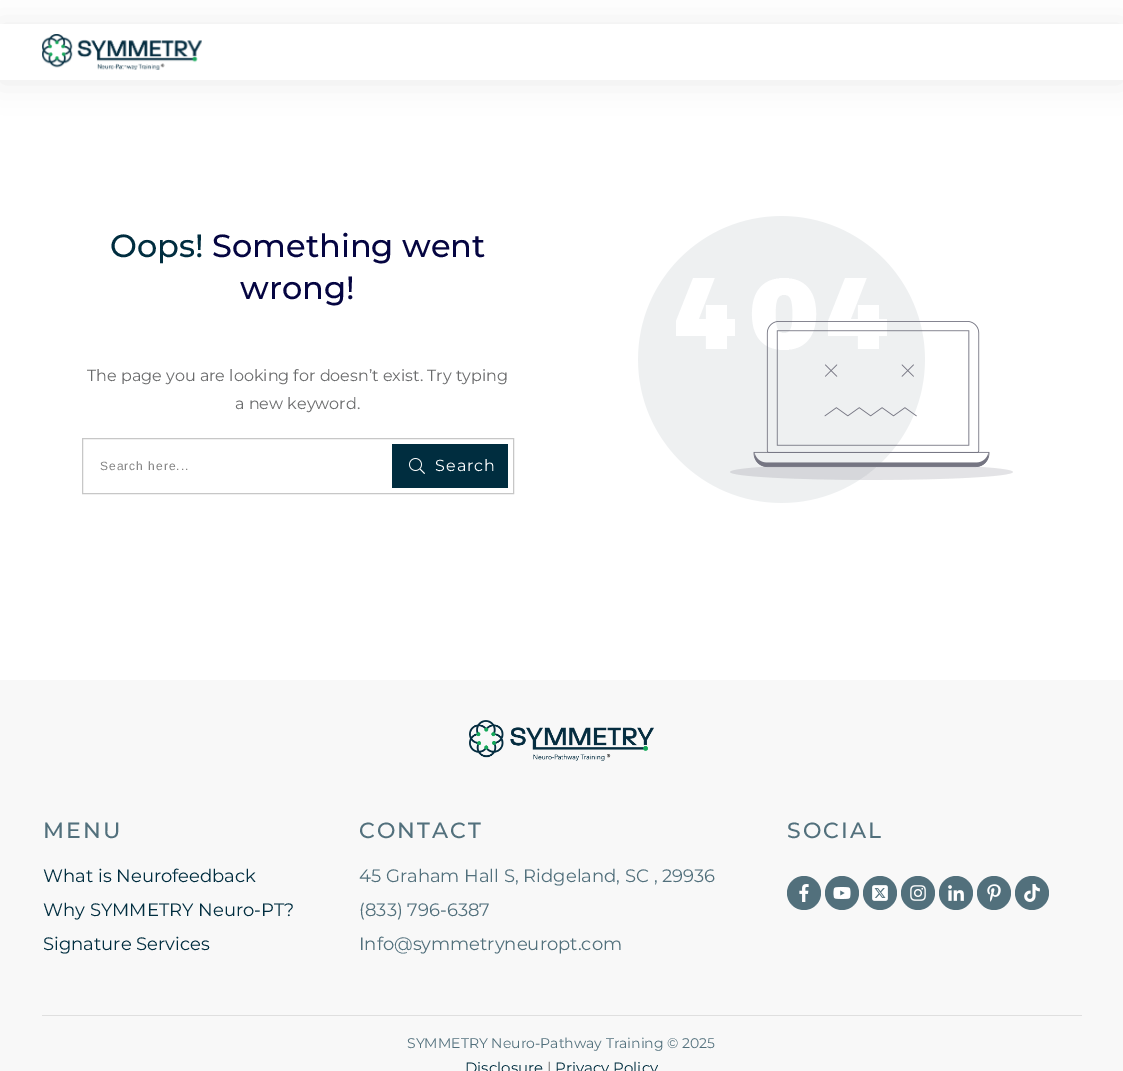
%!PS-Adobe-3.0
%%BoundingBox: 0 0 1123 1071
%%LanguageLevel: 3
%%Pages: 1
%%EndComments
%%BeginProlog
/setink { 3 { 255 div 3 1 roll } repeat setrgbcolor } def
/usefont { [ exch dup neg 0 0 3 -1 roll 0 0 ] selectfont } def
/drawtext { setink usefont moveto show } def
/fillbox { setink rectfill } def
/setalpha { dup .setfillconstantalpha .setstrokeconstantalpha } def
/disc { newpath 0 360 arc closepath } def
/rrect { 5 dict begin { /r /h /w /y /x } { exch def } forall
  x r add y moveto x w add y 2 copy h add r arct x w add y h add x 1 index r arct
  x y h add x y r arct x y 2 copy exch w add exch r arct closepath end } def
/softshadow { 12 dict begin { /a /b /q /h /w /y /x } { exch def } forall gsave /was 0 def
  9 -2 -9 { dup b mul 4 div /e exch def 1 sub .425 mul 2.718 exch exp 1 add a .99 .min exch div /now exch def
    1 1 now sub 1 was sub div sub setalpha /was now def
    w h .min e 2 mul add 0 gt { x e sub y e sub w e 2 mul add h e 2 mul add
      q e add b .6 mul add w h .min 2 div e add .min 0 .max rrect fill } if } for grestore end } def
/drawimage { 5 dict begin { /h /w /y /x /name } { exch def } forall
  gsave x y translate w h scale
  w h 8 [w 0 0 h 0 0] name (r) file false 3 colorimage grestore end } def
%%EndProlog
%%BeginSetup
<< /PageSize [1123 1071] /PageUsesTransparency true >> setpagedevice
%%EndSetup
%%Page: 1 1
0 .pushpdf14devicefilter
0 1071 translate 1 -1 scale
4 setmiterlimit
0 0 1123 1071 255 255 255 fillbox
gsave
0 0 moveto 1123 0 lineto 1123 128 lineto 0 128 lineto closepath 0 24 moveto 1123 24 lineto 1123 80 lineto 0 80 lineto closepath eoclip newpath
0 0 0 setink
0 26 1123 56 0 15 0.08 softshadow
grestore
(assets/img1.rgb) 42 34 160 36 drawimage
(Oops!) 110 257 /Montserrat-Medium 32 0 45 63 drawtext
(Something went) 212 257 /Montserrat-Medium 32 5 5 65 drawtext
(wrong!) 240 299 /Montserrat-Medium 32 5 5 65 drawtext
(The page you are looking for doesn’t exist. Try typing) 87 381 /Montserrat-Regular 16 106 107 108 drawtext
(a new keyword.) 235 409 /Montserrat-Regular 16 106 107 108 drawtext
199 199 199 setink
82.5 438.5 431 55 rectstroke
/LiberationSans-Regular 12 usefont
133 133 133 setink
100 470 moveto 1 0 (Search here...) ashow
392 444 116 44 0 45 63 fillbox
(assets/img2.rgb) 409 458 16 16 drawimage
/Montserrat-Regular 16 usefont
255 255 255 setink
435 471 moveto 1 0 (Search) ashow
(assets/img3.rgb) 638 216 375 287 drawimage
0 680 1123 391 248 248 248 fillbox
(assets/img4.rgb) 469 720 185 41 drawimage
/Montserrat-Medium 22 usefont
82 112 124 setink
43 838 moveto 2 0 (MENU) ashow
(What is Neurofeedback) 43 882 /Montserrat-Regular 18 0 45 63 drawtext
(Why SYMMETRY Neuro-PT?) 43 916 /Montserrat-Regular 18 0 45 63 drawtext
(Signature Services) 43 950 /Montserrat-Regular 18 0 45 63 drawtext
/Montserrat-Medium 22 usefont
82 112 124 setink
359 838 moveto 2 0 (CONTACT) ashow
(45 Graham Hall S, Ridgeland, SC , 29936) 359 882 /Montserrat-Regular 18 82 112 124 drawtext
(\(833\) 796-6387) 359 916 /Montserrat-Regular 18 82 112 124 drawtext
(Info@symmetryneuropt.com) 359 950 /Montserrat-Regular 18 82 112 124 drawtext
/Montserrat-Medium 22 usefont
787 838 moveto 2 0 (SOCIAL) ashow
804 893 17 disc fill
(assets/img5.rgb) 799 884 10 18 drawimage
842 893 17 disc fill
(assets/img6.rgb) 833 887 18 12 drawimage
880 893 17 disc fill
(assets/img7.rgb) 872 885 16 16 drawimage
918 893 17 disc fill
(assets/img8.rgb) 910 885 16 16 drawimage
956 893 17 disc fill
(assets/img9.rgb) 948 885 16 16 drawimage
994 893 17 disc fill
(assets/img10.rgb) 987 884 14 18 drawimage
1032 893 17 disc fill
(assets/img11.rgb) 1024 884 16 18 drawimage
42 1015 1040 1 223 223 223 fillbox
(SYMMETRY Neuro-Pathway Training © 2025) 407 1048 /Montserrat-Regular 14 82 112 124 drawtext
(Disclosure) 465 1073 /Montserrat-Regular 15 0 45 63 drawtext
(|) 547 1073 /Montserrat-Regular 15 106 107 108 drawtext
(Privacy Policy) 555 1073 /Montserrat-Regular 15 0 45 63 drawtext
.poppdf14devicefilter showpage
%%EOF
